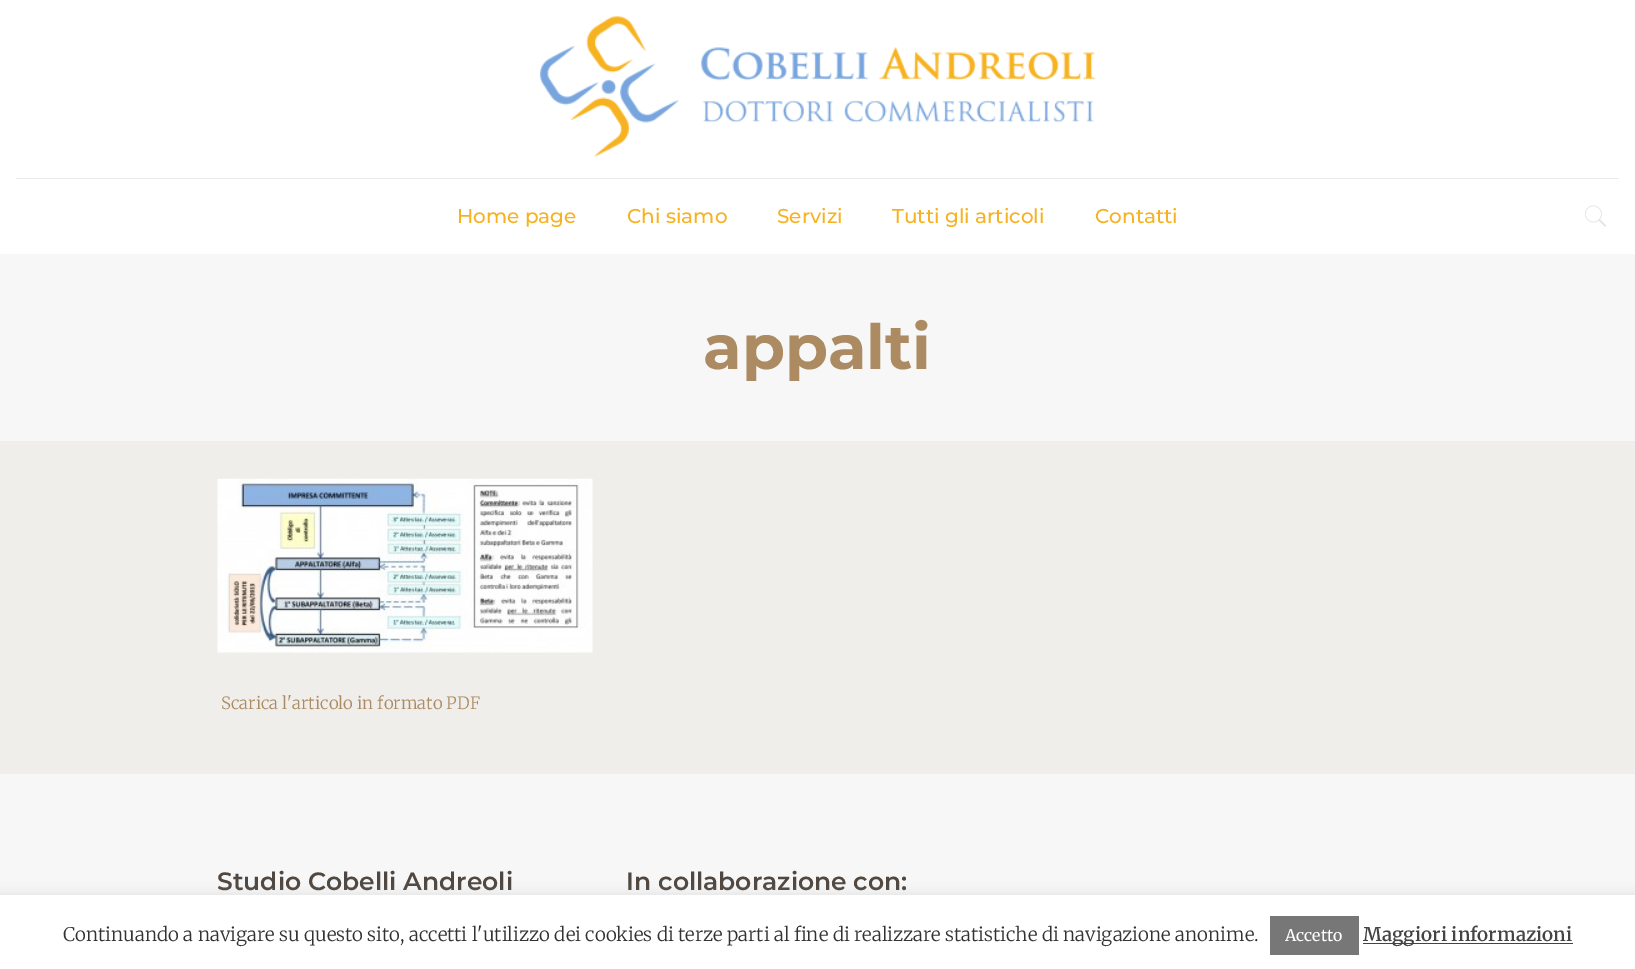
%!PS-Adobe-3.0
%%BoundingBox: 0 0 1635 969
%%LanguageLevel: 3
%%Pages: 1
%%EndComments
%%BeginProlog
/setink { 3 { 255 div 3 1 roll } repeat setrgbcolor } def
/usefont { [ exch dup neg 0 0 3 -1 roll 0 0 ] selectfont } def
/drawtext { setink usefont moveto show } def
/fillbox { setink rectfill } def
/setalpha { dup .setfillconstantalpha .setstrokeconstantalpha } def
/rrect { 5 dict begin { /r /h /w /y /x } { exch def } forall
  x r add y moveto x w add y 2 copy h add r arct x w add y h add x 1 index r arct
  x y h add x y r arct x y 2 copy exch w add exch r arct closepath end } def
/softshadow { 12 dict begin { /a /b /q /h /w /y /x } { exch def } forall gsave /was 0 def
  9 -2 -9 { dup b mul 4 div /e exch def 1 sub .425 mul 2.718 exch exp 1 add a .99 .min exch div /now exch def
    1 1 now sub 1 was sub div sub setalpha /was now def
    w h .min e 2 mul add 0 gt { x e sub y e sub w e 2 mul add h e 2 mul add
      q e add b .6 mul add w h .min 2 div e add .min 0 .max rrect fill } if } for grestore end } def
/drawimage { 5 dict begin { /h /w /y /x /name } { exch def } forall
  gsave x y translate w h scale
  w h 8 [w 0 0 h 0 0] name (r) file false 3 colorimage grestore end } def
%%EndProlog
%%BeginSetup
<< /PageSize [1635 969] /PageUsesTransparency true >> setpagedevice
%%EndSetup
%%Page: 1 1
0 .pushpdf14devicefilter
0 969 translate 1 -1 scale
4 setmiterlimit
0 0 1635 969 239 238 234 fillbox
0 0 1635 254 255 255 255 fillbox
16 178 1603 1 235 235 235 fillbox
(assets/img1.rgb) 539 16 557 141 drawimage
(Home page) 457 223 /Montserrat-Medium 20 246 178 32 drawtext
(Chi siamo) 627 223 /Montserrat-Medium 20 246 178 32 drawtext
(Servizi) 777 223 /Montserrat-Medium 20 246 178 32 drawtext
(Tutti gli articoli) 892 223 /Montserrat-Medium 20 246 178 32 drawtext
(Contatti) 1095 223 /Montserrat-Medium 20 246 178 32 drawtext
(assets/img2.rgb) 1585 205 22 22 drawimage
0 254 1635 187 247 247 247 fillbox
(appalti) 703 369 /Montserrat-Bold 62.5 172 138 98 drawtext
(assets/img3.rgb) 217 478 376 175 drawimage
(Scarica l'articolo in formato PDF) 221 709 /Merriweather-Light 16.9 172 138 98 drawtext
0 774 1635 121 247 247 247 fillbox
(Studio Cobelli Andreoli) 217 890 /Montserrat-SemiBold 25 80 72 64 drawtext
(In collaborazione con:) 626 890 /Montserrat-SemiBold 25 80 72 64 drawtext
172 171 171 setink
0 894 1635 75 0 6 0.3 softshadow
0 895 1635 74 255 255 255 fillbox
(Continuando a navigare su questo sito, accetti l'utilizzo dei cookies di terze parti al fine di realizzare statistiche di navigazione anonime.) 63 941 /Merriweather-Light 18.75 51 51 51 drawtext
1270 916 89 39 119 119 119 fillbox
(Accetto) 1285 941 /Merriweather-Regular 16 255 255 255 drawtext
1363 943 210 1 68 68 68 fillbox
(Maggiori informazioni) 1363 941 /Merriweather-SemiBold 18.75 68 68 68 drawtext
.poppdf14devicefilter showpage
%%EOF
